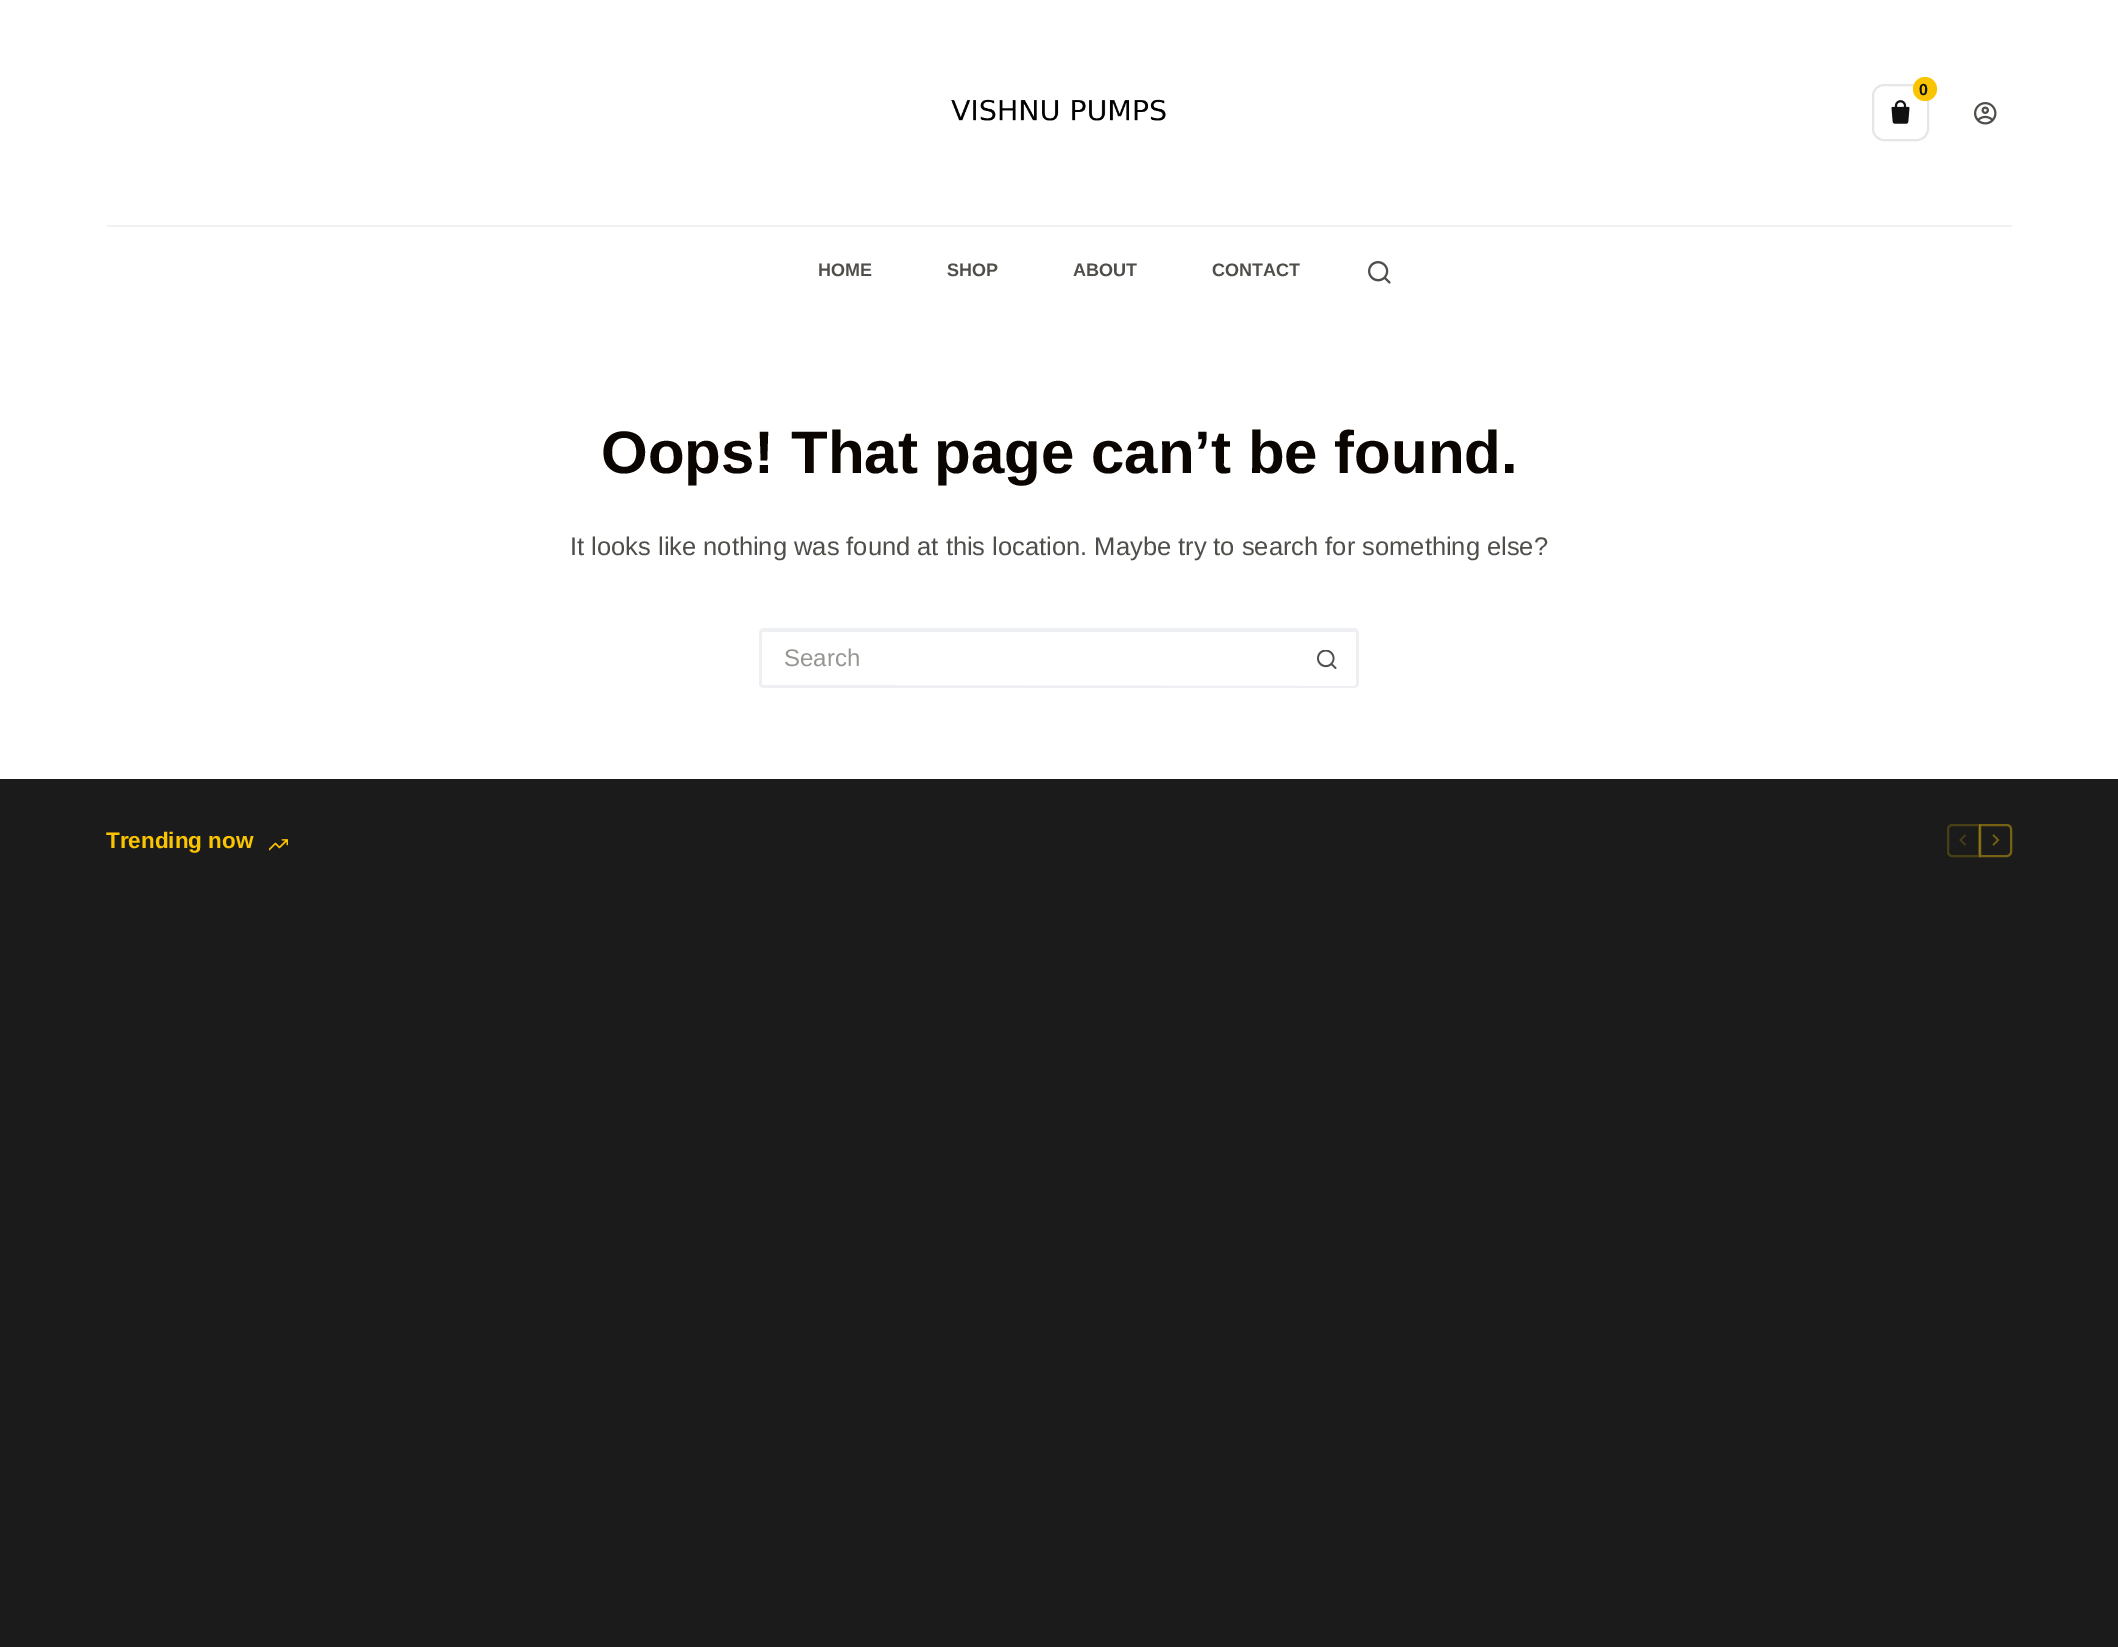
%!PS-Adobe-3.0
%%BoundingBox: 0 0 2118 1647
%%LanguageLevel: 3
%%Pages: 1
%%EndComments
%%BeginProlog
/setink { 3 { 255 div 3 1 roll } repeat setrgbcolor } def
/usefont { [ exch dup neg 0 0 3 -1 roll 0 0 ] selectfont } def
/drawtext { setink usefont moveto show } def
/fillbox { setink rectfill } def
/setalpha { dup .setfillconstantalpha .setstrokeconstantalpha } def
/disc { newpath 0 360 arc closepath } def
/rrect { 5 dict begin { /r /h /w /y /x } { exch def } forall
  x r add y moveto x w add y 2 copy h add r arct x w add y h add x 1 index r arct
  x y h add x y r arct x y 2 copy exch w add exch r arct closepath end } def
/drawimage { 5 dict begin { /h /w /y /x /name } { exch def } forall
  gsave x y translate w h scale
  w h 8 [w 0 0 h 0 0] name (r) file false 3 colorimage grestore end } def
%%EndProlog
%%BeginSetup
<< /PageSize [2118 1647] /PageUsesTransparency true >> setpagedevice
%%EndSetup
%%Page: 1 1
0 .pushpdf14devicefilter
0 1647 translate 1 -1 scale
4 setmiterlimit
0 0 2118 1647 255 255 255 fillbox
230 230 230 setink
2 setlinewidth
1873 85 55 55 11 rrect stroke
250 196 0 setink
1925 89 12 disc fill
(0) 1919 95 /LiberationSans-Bold 16 17 17 17 drawtext
(assets/img1.rgb) 1891 100 19 24 drawimage
(assets/img2.rgb) 1974 102 23 23 drawimage
(assets/img3.rgb) 951 99 215 22 drawimage
107 225 1905 2 242 241 241 fillbox
(HOME) 818 276 /LiberationSans-Bold 18 80 78 74 drawtext
(SHOP) 947 276 /LiberationSans-Bold 18 80 78 74 drawtext
(ABOUT) 1073 276 /LiberationSans-Bold 18 80 78 74 drawtext
(CONTACT) 1212 276 /LiberationSans-Bold 18 80 78 74 drawtext
(assets/img4.rgb) 1368 261 23 23 drawimage
(Oops! That page can’t be found.) 601 473 /LiberationSans-Bold 60 10 5 0 drawtext
(It looks like nothing was found at this location. Maybe try to search for something else?) 570 555 /LiberationSans-Regular 25.5 80 78 74 drawtext
237 239 242 setink
764 628 moveto 1299 628 lineto 1299 688 lineto 764 688 lineto 761 688 759 686 759 684 curveto 759 633 lineto 759 631 761 628 764 628 curveto closepath 764 632 moveto 1299 632 lineto 1299 686 lineto 763 685 lineto 762 684 lineto 762 633 lineto 762 632 763 632 764 632 curveto closepath eofill
(Search) 784 666 /LiberationSans-Regular 24 150 149 146 drawtext
237 239 242 setink
1299 628 moveto 1354 628 lineto 1357 628 1359 631 1359 633 curveto 1359 684 lineto 1359 686 1357 688 1354 688 curveto 1299 688 lineto closepath 1299 632 moveto 1354 632 lineto 1355 632 1356 632 1356 633 curveto 1356 684 lineto 1356 685 1355 686 1354 686 curveto 1299 686 lineto closepath eofill
(assets/img5.rgb) 1317 650 20 19 drawimage
0 779 2118 868 27 27 27 fillbox
(Trending now) 106 848 /LiberationSans-Bold 22.5 250 196 0 drawtext
(assets/img6.rgb) 269 839 19 12 drawimage
73 63 23 setink
1952 825 moveto 1979 825 lineto 1979 856 lineto 1952 856 lineto 1950 856 1948 854 1948 852 curveto 1948 829 lineto 1948 827 1950 825 1952 825 curveto closepath stroke
(assets/img7.rgb) 1959 834 7 12 drawimage
0.4 setalpha
255 205 5 setink
1980 825 moveto 2007 825 lineto 2009 825 2011 827 2011 829 curveto 2011 852 lineto 2011 854 2009 856 2007 856 curveto 1980 856 lineto closepath stroke
1 setalpha
(assets/img8.rgb) 1992 834 8 12 drawimage
.poppdf14devicefilter showpage
%%EOF
